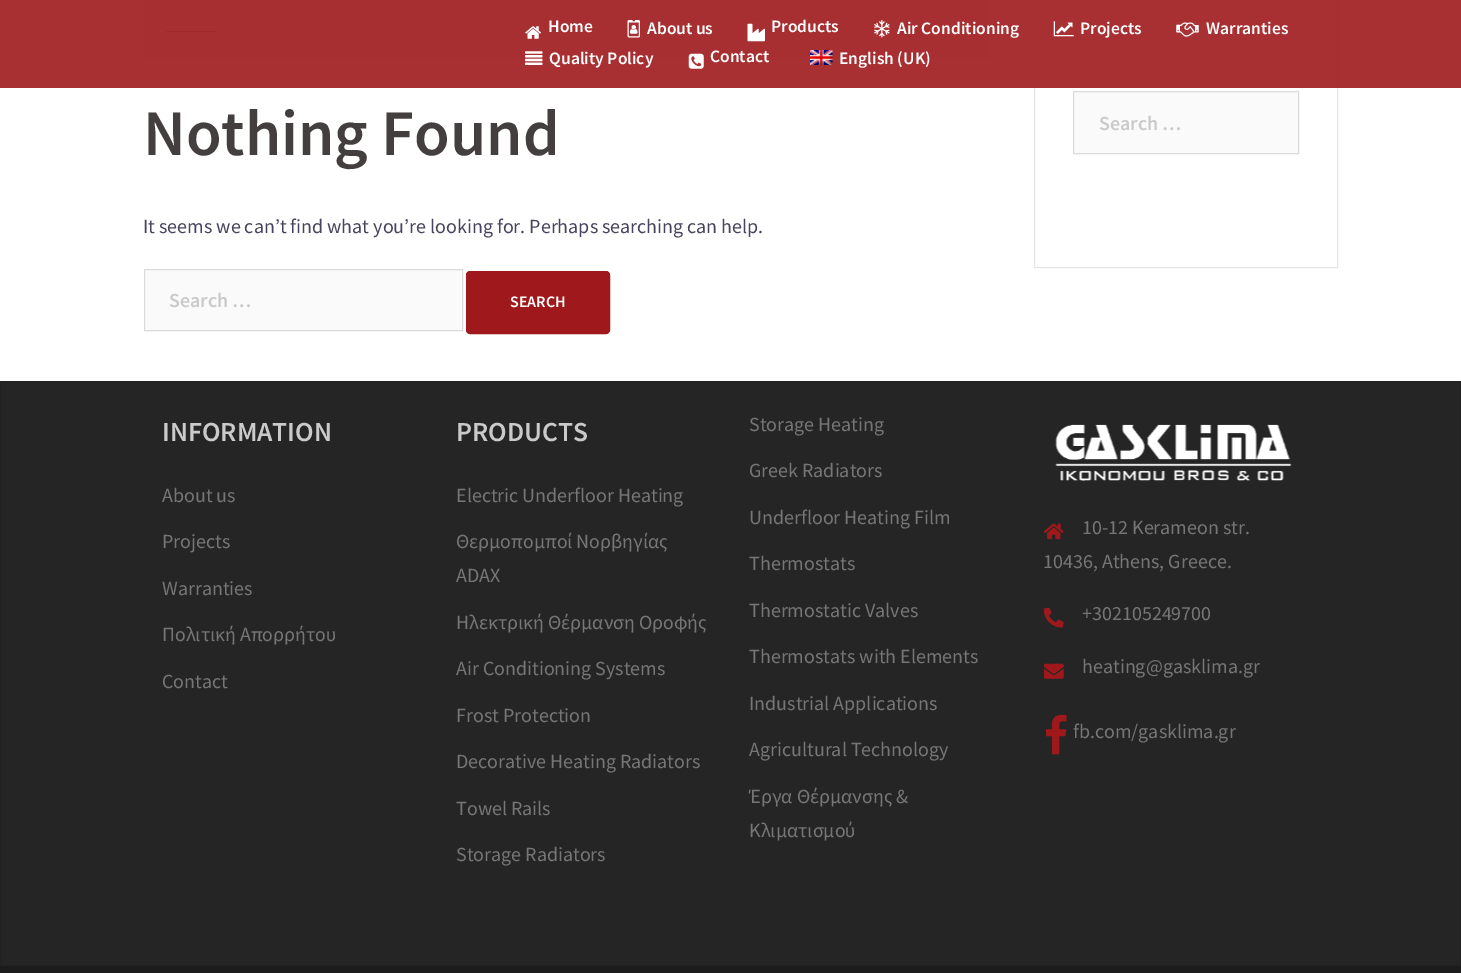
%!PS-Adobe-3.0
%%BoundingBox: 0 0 1461 973
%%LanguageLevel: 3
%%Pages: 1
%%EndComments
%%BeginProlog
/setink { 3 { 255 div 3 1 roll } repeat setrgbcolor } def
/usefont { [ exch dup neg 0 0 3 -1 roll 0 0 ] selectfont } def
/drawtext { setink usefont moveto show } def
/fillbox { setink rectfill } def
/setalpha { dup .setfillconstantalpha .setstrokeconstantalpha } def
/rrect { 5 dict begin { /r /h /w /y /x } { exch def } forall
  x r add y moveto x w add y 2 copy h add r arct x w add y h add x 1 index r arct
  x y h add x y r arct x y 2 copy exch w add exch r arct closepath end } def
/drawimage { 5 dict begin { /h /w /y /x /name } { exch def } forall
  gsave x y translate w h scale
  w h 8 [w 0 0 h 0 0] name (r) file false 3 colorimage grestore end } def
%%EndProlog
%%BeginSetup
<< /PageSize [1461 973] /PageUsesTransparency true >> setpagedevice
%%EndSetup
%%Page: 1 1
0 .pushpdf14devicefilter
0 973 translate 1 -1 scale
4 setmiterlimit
0 0 1461 973 255 255 255 fillbox
144 0 846 59 247 247 247 fillbox
166 31 50 1 186 186 186 fillbox
230 230 230 setink
1034.5 -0.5 303 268 rectstroke
0.9 setalpha
0 0 1461 88 159 25 28 fillbox
1 setalpha
(assets/img1.rgb) 525 26 16 13 drawimage
(Home) 548 32 /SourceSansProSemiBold-SemiBold 17.5 255 255 255 drawtext
(assets/img2.rgb) 627 20 13 18 drawimage
(About us) 647 34 /SourceSansProSemiBold-SemiBold 17.5 255 255 255 drawtext
(assets/img3.rgb) 747 23 18 19 drawimage
(Products) 771 32 /SourceSansProSemiBold-SemiBold 17.5 255 255 255 drawtext
(assets/img4.rgb) 874 20 16 18 drawimage
(Air Conditioning) 897 34 /SourceSansProSemiBold-SemiBold 17.5 255 255 255 drawtext
(assets/img5.rgb) 1053 21 21 16 drawimage
(Projects) 1080 34 /SourceSansProSemiBold-SemiBold 17.5 255 255 255 drawtext
(assets/img6.rgb) 1176 22 23 15 drawimage
(Warranties) 1206 34 /SourceSansProSemiBold-SemiBold 17.5 255 255 255 drawtext
(assets/img7.rgb) 525 51 18 14 drawimage
(Quality Policy) 549 64 /SourceSansProSemiBold-SemiBold 17.5 255 255 255 drawtext
(assets/img8.rgb) 688 53 16 16 drawimage
(Contact) 710 62 /SourceSansProSemiBold-SemiBold 17.5 255 255 255 drawtext
(assets/img9.rgb) 810 50 23 15 drawimage
(English \(UK\)) 839 64 /SourceSansProSemiBold-SemiBold 17.5 255 255 255 drawtext
(Nothing Found) 143 155 /SourceSansProSemiBold-SemiBold 65 68 63 63 drawtext
(It seems we can’t find what you’re looking for. Perhaps searching can help.) 143 233 /SourceSansPro-Regular 20 71 66 93 drawtext
250 250 250 setink
144.5 269.5 moveto 462.5 269.5 lineto 462.5 330.5 lineto 144.5 330.5 lineto closepath gsave fill grestore
219 219 219 setink
stroke
(Search …) 169 307 /SourceSansProSemiBold-SemiBold 20 202 202 202 drawtext
159 25 28 setink
466.5 271.5 143 62 3.5 rrect gsave fill grestore
stroke
(SEARCH) 510 307 /SourceSansProSemiBold-SemiBold 16 255 255 255 drawtext
250 250 250 setink
1073.5 91.5 moveto 1298.5 91.5 lineto 1298.5 153.5 lineto 1073.5 153.5 lineto closepath gsave fill grestore
219 219 219 setink
stroke
(Search …) 1099 130 /SourceSansProSemiBold-SemiBold 20 202 202 202 drawtext
37 37 37 setink
0.5 381.5 moveto 1460.5 381.5 lineto 1460.5 965.5 lineto 0.5 965.5 lineto closepath gsave fill grestore
33 33 33 setink
stroke
(INFORMATION) 162 441 /SourceSansProSemiBold-SemiBold 27.5 202 202 202 drawtext
(About us) 162 502 /SourceSansPro-Regular 20 118 118 118 drawtext
(Projects) 162 548 /SourceSansPro-Regular 20 118 118 118 drawtext
(Warranties) 162 595 /SourceSansPro-Regular 20 118 118 118 drawtext
(Πολιτική Απορρήτου) 162 641 /SourceSansPro-Regular 20 118 118 118 drawtext
(Contact) 162 688 /SourceSansPro-Regular 20 118 118 118 drawtext
(PRODUCTS) 456 441 /SourceSansProSemiBold-SemiBold 27.5 202 202 202 drawtext
(Electric Underfloor Heating) 456 502 /SourceSansPro-Regular 20 118 118 118 drawtext
(Θερμοπομποί Νορβηγίας) 456 548 /SourceSansPro-Regular 20 118 118 118 drawtext
(ADAX) 456 582 /SourceSansPro-Regular 20 118 118 118 drawtext
(Ηλεκτρική Θέρμανση Οροφής) 456 629 /SourceSansPro-Regular 20 118 118 118 drawtext
(Air Conditioning Systems) 456 675 /SourceSansPro-Regular 20 118 118 118 drawtext
(Frost Protection) 456 722 /SourceSansPro-Regular 20 118 118 118 drawtext
(Decorative Heating Radiators) 456 768 /SourceSansPro-Regular 20 118 118 118 drawtext
(Towel Rails) 456 815 /SourceSansPro-Regular 20 118 118 118 drawtext
(Storage Radiators) 456 861 /SourceSansPro-Regular 20 118 118 118 drawtext
(Storage Heating) 749 431 /SourceSansPro-Regular 20 118 118 118 drawtext
(Greek Radiators) 749 477 /SourceSansPro-Regular 20 118 118 118 drawtext
(Underfloor Heating Film) 749 524 /SourceSansPro-Regular 20 118 118 118 drawtext
(Thermostats) 749 570 /SourceSansPro-Regular 20 118 118 118 drawtext
(Thermostatic Valves) 749 617 /SourceSansPro-Regular 20 118 118 118 drawtext
(Thermostats with Elements) 749 663 /SourceSansPro-Regular 20 118 118 118 drawtext
(Industrial Applications) 749 710 /SourceSansPro-Regular 20 118 118 118 drawtext
(Agricultural Technology) 749 756 /SourceSansPro-Regular 20 118 118 118 drawtext
(Έργα Θέρμανσης &) 749 803 /SourceSansPro-Regular 20 118 118 118 drawtext
(Κλιματισμού) 749 837 /SourceSansPro-Regular 20 118 118 118 drawtext
(assets/img10.rgb) 1055 424 237 57 drawimage
(assets/img11.rgb) 1044 523 19 17 drawimage
(10-12 Kerameon str.) 1082 534 /SourceSansPro-Regular 20 118 118 118 drawtext
(10436, Athens, Greece.) 1043 568 /SourceSansPro-Regular 20 118 118 118 drawtext
(assets/img12.rgb) 1044 608 20 20 drawimage
(+302105249700) 1082 620 /SourceSansPro-Regular 20 118 118 118 drawtext
(assets/img13.rgb) 1044 663 20 16 drawimage
(heating@gasklima.gr) 1082 673 /SourceSansPro-Regular 20 118 118 118 drawtext
(assets/img14.rgb) 1046 714 21 41 drawimage
(fb.com/gasklima.gr) 1073 738 /SourceSansPro-Regular 20 118 118 118 drawtext
0 966 1461 7 28 28 28 fillbox
.poppdf14devicefilter showpage
%%EOF
